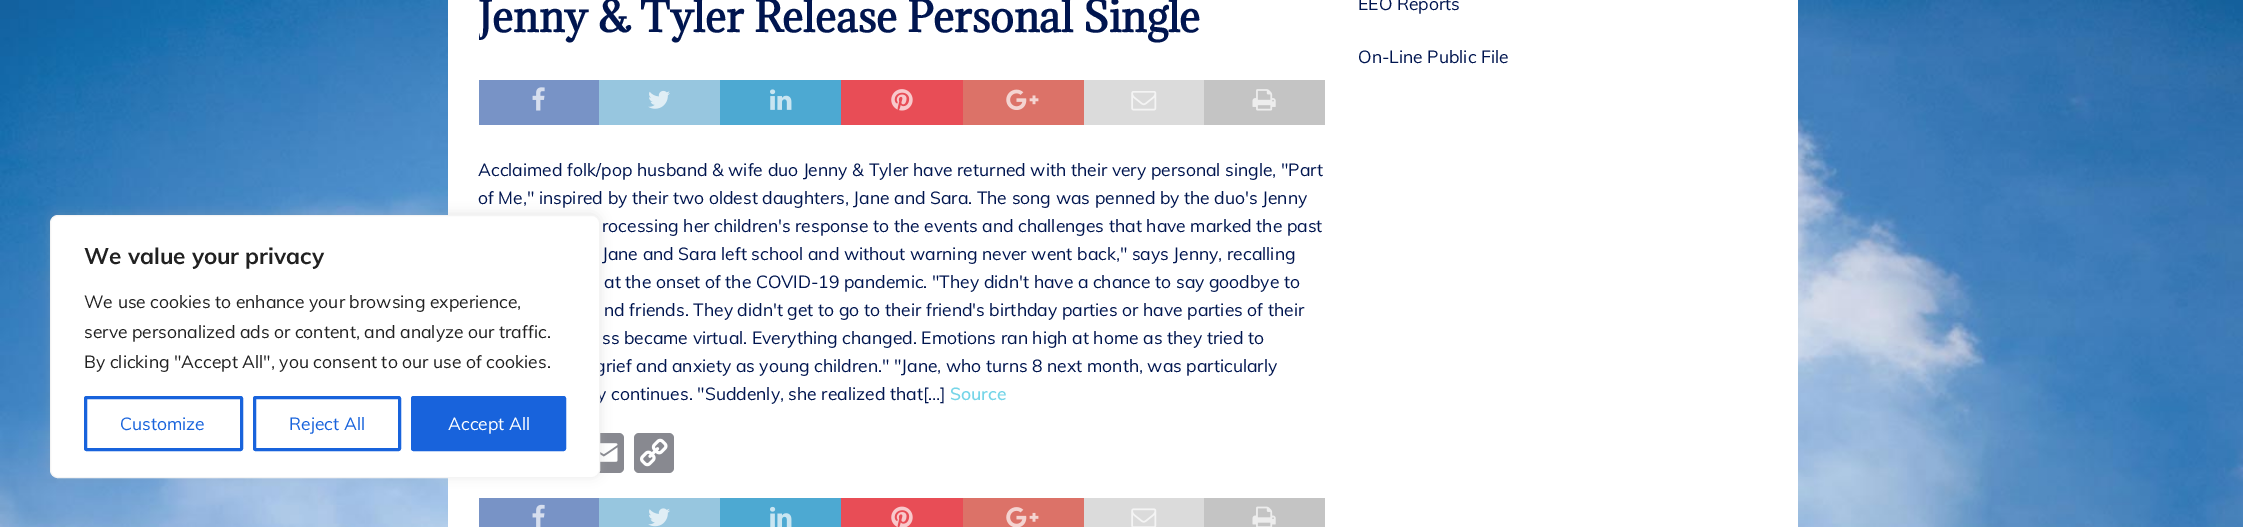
%!PS-Adobe-3.0
%%BoundingBox: 0 0 2243 527
%%LanguageLevel: 3
%%Pages: 1
%%EndComments
%%BeginProlog
/setink { 3 { 255 div 3 1 roll } repeat setrgbcolor } def
/usefont { [ exch dup neg 0 0 3 -1 roll 0 0 ] selectfont } def
/drawtext { setink usefont moveto show } def
/fillbox { setink rectfill } def
/setalpha { dup .setfillconstantalpha .setstrokeconstantalpha } def
/rrect { 5 dict begin { /r /h /w /y /x } { exch def } forall
  x r add y moveto x w add y 2 copy h add r arct x w add y h add x 1 index r arct
  x y h add x y r arct x y 2 copy exch w add exch r arct closepath end } def
/softshadow { 12 dict begin { /a /b /q /h /w /y /x } { exch def } forall gsave /was 0 def
  9 -2 -9 { dup b mul 4 div /e exch def 1 sub .425 mul 2.718 exch exp 1 add a .99 .min exch div /now exch def
    1 1 now sub 1 was sub div sub setalpha /was now def
    w h .min e 2 mul add 0 gt { x e sub y e sub w e 2 mul add h e 2 mul add
      q e add b .6 mul add w h .min 2 div e add .min 0 .max rrect fill } if } for grestore end } def
/drawimage { 5 dict begin { /h /w /y /x /name } { exch def } forall
  gsave x y translate w h scale
  w h 8 [w 0 0 h 0 0] name (r) file false 3 colorimage grestore end } def
%%EndProlog
%%BeginSetup
<< /PageSize [2243 527] /PageUsesTransparency true >> setpagedevice
%%EndSetup
%%Page: 1 1
0 .pushpdf14devicefilter
0 527 translate 1 -1 scale
4 setmiterlimit
0 0 2243 527 255 255 255 fillbox
(assets/img1.rgb) 0 0 2243 527 drawimage
448 0 1350 527 255 255 255 fillbox
136 137 144 setink
584 433 40 40 5 rrect fill
(assets/img9.rgb) 600 443 18 19 drawimage
172 171 171 setink
50 214 550 262 8 6 0.3 softshadow
(grief and anxiety as young children." "Jane, who turns 8 next month, was particularly) 595 372 /Muli-Regular 17.5 0 21 79 drawtext
(y continues. "Suddenly, she realized that[…]) 597 400 /Muli-Regular 17.5 0 21 79 drawtext
255 255 255 setink
50.5 215.5 549 262 7.5 rrect gsave fill grestore
244 244 244 setink
stroke
(We value your privacy) 84 264 /Muli-Bold 22.5 33 33 33 drawtext
(We use cookies to enhance your browsing experience,) 84 308 /Muli-Regular 17.5 33 33 33 drawtext
(serve personalized ads or content, and analyze our traffic.) 84 338 /Muli-Regular 17.5 33 33 33 drawtext
(By clicking "Accept All", you consent to our use of cookies.) 84 368 /Muli-Regular 17.5 33 33 33 drawtext
24 99 220 setink
3 setlinewidth
85.5 397.5 156 52 1 rrect stroke
(Customize) 120 430 /Muli-Regular 17.5 24 99 220 drawtext
254.5 397.5 145 52 1 rrect stroke
(Reject All) 289 430 /Muli-Regular 17.5 24 99 220 drawtext
412.5 397.5 152 52 1 rrect gsave fill grestore
stroke
(Accept All) 448 430 /Muli-Regular 17.5 255 255 255 drawtext
gsave
479 0 847 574 rectclip
(Jenny & Tyler Release Personal Single) 478 32 /Adamina-Bold 40 0 21 79 drawtext
grestore
479 80 120 45 120 147 198 fillbox
(assets/img2.rgb) 532 87 13 24 drawimage
599 80 121 45 151 198 223 fillbox
(assets/img3.rgb) 648 90 22 19 drawimage
720 80 121 45 77 169 210 fillbox
(assets/img4.rgb) 770 89 22 21 drawimage
841 80 122 45 232 77 86 fillbox
(assets/img5.rgb) 891 89 22 22 drawimage
963 80 121 45 220 114 104 fillbox
(assets/img6.rgb) 1006 89 33 21 drawimage
1084 80 120 45 219 219 219 fillbox
(assets/img7.rgb) 1131 91 26 20 drawimage
1204 80 121 45 196 196 196 fillbox
(assets/img8.rgb) 1252 89 24 22 drawimage
(Acclaimed folk/pop husband & wife duo Jenny & Tyler have returned with their very personal single, "Part) 478 176 /Muli-Regular 17.5 0 21 79 drawtext
(of Me," inspired by their two oldest daughters, Jane and Sara. The song was penned by the duo's Jenny) 478 204 /Muli-Regular 17.5 0 21 79 drawtext
(rocessing her children's response to the events and challenges that have marked the past) 602 232 /Muli-Regular 17.5 0 21 79 drawtext
(Jane and Sara left school and without warning never went back," says Jenny, recalling) 602 260 /Muli-Regular 17.5 0 21 79 drawtext
(at the onset of the COVID-19 pandemic. "They didn't have a chance to say goodbye to) 604 288 /Muli-Regular 17.5 0 21 79 drawtext
(nd friends. They didn't get to go to their friend's birthday parties or have parties of their) 604 316 /Muli-Regular 17.5 0 21 79 drawtext
(ss became virtual. Everything changed. Emotions ran high at home as they tried to) 602 344 /Muli-Regular 17.5 0 21 79 drawtext
(Source) 950 400 /Muli-SemiBold 17.5 118 213 232 drawtext
136 137 144 setink
634 433 40 40 5 rrect fill
(assets/img10.rgb) 640 438 28 29 drawimage
479 498 120 29 120 147 198 fillbox
(assets/img11.rgb) 532 504 13 23 drawimage
599 498 121 29 151 198 223 fillbox
(assets/img12.rgb) 648 508 22 19 drawimage
720 498 121 29 77 169 210 fillbox
(assets/img13.rgb) 770 506 22 21 drawimage
841 498 122 29 232 77 86 fillbox
(assets/img14.rgb) 891 506 22 21 drawimage
963 498 121 29 220 114 104 fillbox
(assets/img15.rgb) 1006 507 33 20 drawimage
1084 498 120 29 219 219 219 fillbox
(assets/img16.rgb) 1131 508 26 19 drawimage
1204 498 121 29 196 196 196 fillbox
(assets/img17.rgb) 1252 506 24 21 drawimage
(EEO Reports) 1358 10 /Muli-Regular 17.5 0 21 79 drawtext
(On-Line Public File) 1358 63 /Muli-Regular 17.5 0 21 79 drawtext
.poppdf14devicefilter showpage
%%EOF
